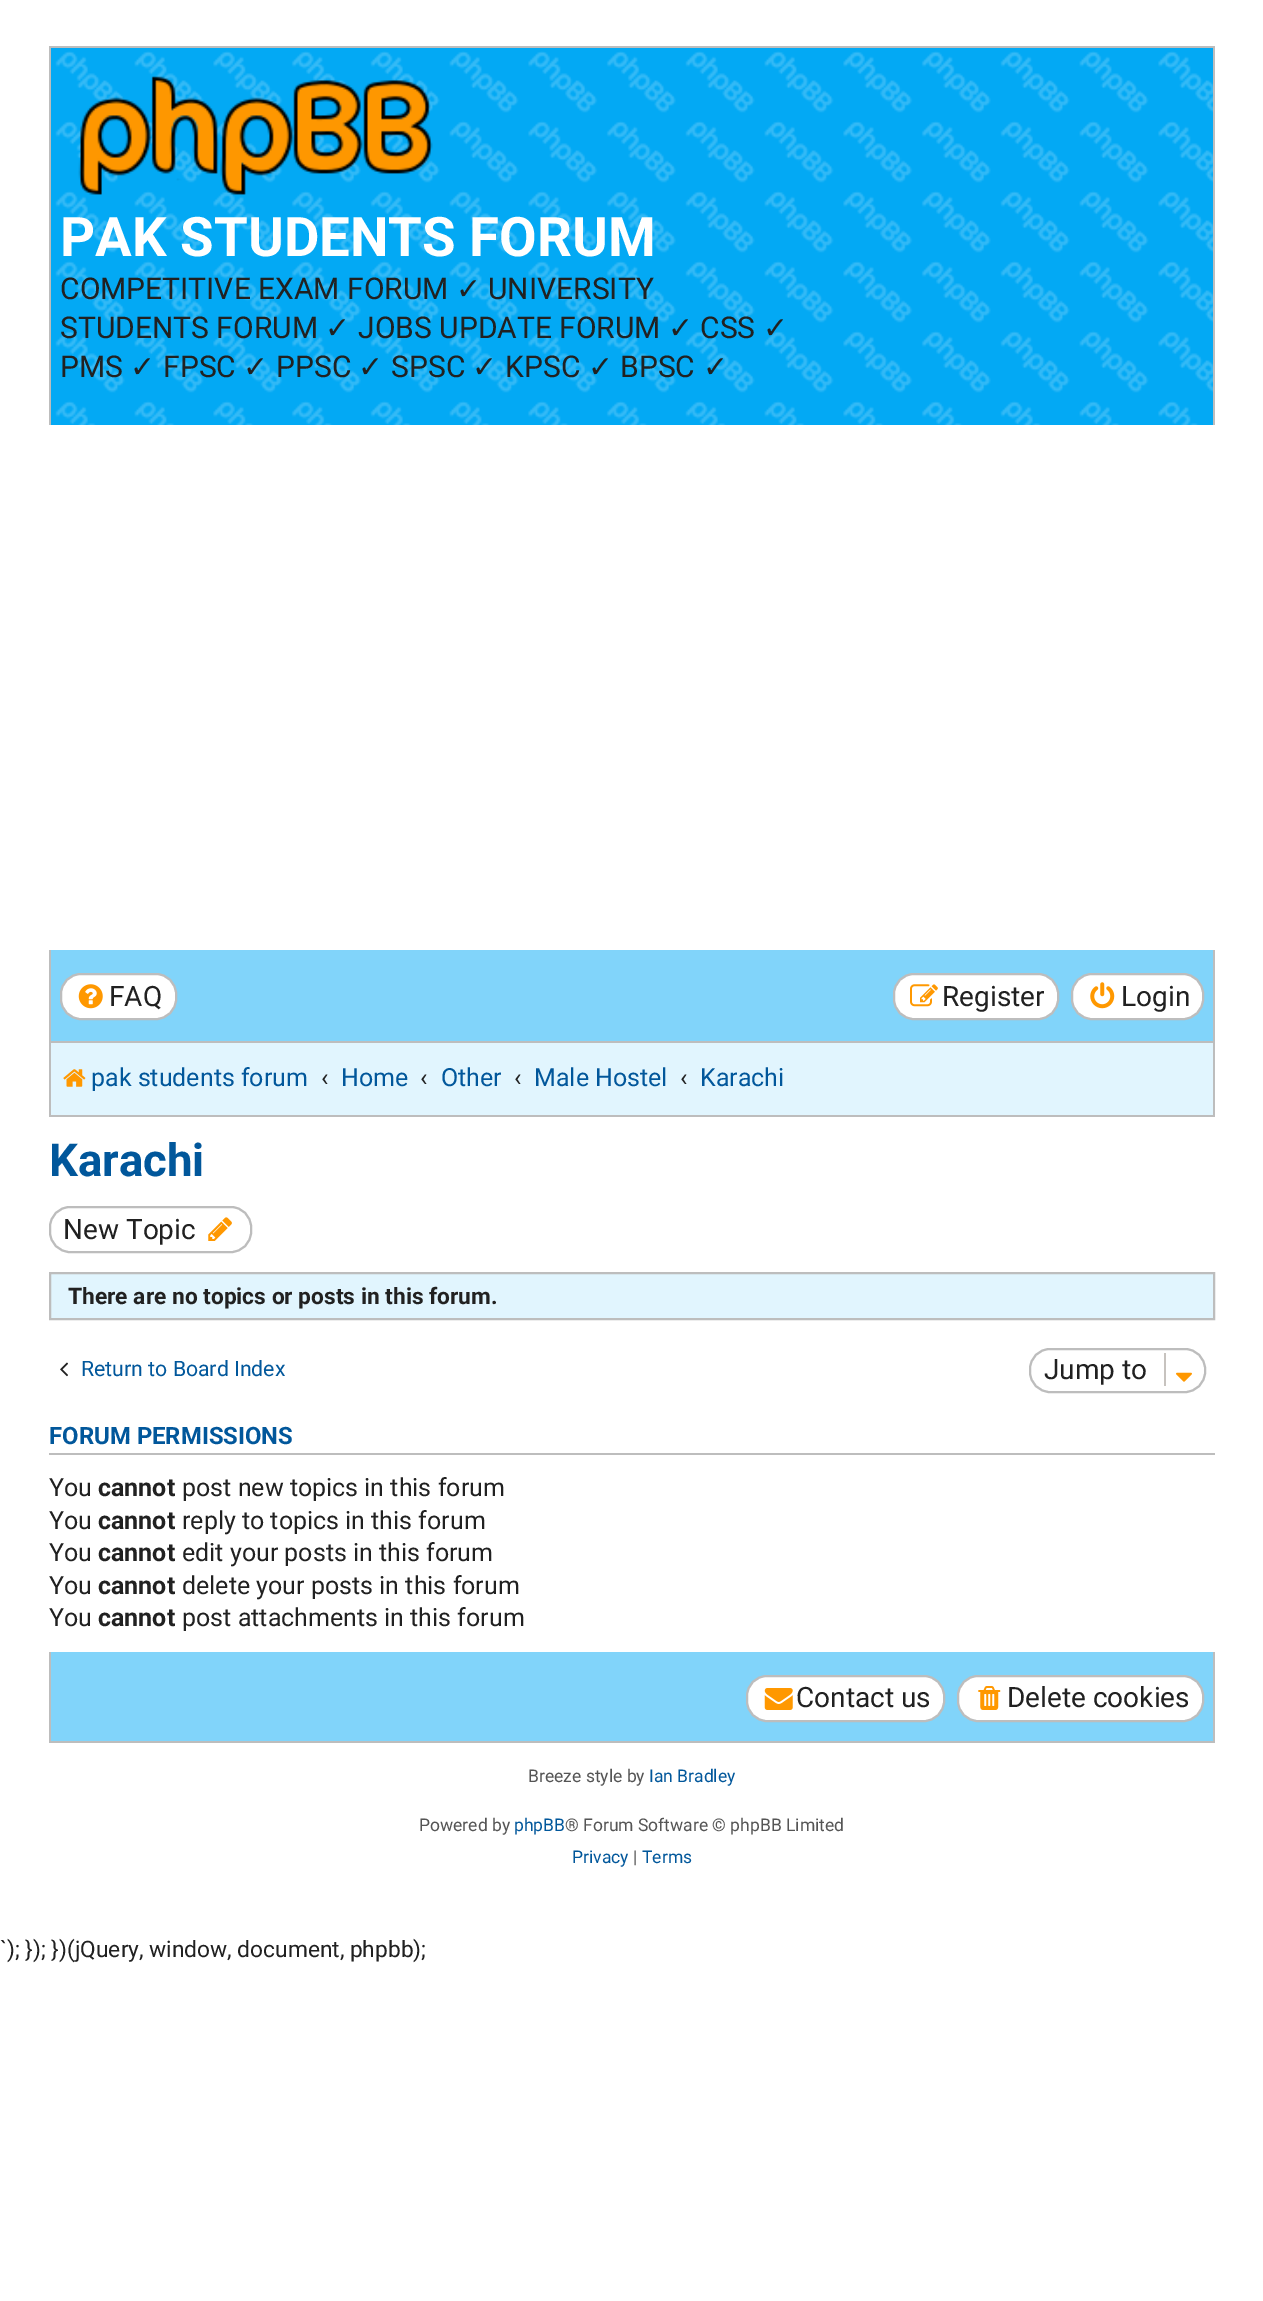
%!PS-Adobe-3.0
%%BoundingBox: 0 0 1263 2301
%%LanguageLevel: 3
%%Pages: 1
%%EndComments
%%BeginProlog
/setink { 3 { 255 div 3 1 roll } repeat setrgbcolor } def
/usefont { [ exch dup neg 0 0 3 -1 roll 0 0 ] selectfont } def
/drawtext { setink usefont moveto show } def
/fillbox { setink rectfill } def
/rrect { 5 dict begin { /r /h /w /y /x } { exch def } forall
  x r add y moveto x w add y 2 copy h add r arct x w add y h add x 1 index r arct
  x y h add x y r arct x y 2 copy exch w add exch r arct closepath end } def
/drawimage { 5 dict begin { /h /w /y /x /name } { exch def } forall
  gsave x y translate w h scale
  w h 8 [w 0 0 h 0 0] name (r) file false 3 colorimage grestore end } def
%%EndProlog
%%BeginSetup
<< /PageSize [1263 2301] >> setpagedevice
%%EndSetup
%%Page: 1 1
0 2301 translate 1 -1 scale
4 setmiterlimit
0 0 1263 2301 255 255 255 fillbox
51 48 1162 377 3 169 244 fillbox
(assets/img1.rgb) 55 51 1158 374 drawimage
49 46 1166 2 189 189 189 fillbox
1213 46 2 379 189 189 189 fillbox
49 46 2 379 189 189 189 fillbox
(assets/img2.rgb) 78 76 355 119 drawimage
(PAK STUDENTS FORUM) 60 256 /Roboto-Bold 54.6 255 255 255 drawtext
(COMPETITIVE EXAM FORUM) 60 299 /Roboto-Regular 30 33 33 33 drawtext
(✓) 456 299 /DejaVuSans-Regular 30 33 33 33 drawtext
(UNIVERSITY) 488 299 /Roboto-Regular 30 33 33 33 drawtext
(STUDENTS FORUM) 60 338 /Roboto-Regular 30 33 33 33 drawtext
(✓) 325 338 /DejaVuSans-Regular 30 33 33 33 drawtext
(JOBS UPDATE FORUM) 358 338 /Roboto-Regular 30 33 33 33 drawtext
(✓) 668 338 /DejaVuSans-Regular 30 33 33 33 drawtext
(CSS) 700 338 /Roboto-Regular 30 33 33 33 drawtext
(✓) 763 338 /DejaVuSans-Regular 30 33 33 33 drawtext
(PMS) 60 377 /Roboto-Regular 30 33 33 33 drawtext
(✓) 130 377 /DejaVuSans-Regular 30 33 33 33 drawtext
(FPSC) 163 377 /Roboto-Regular 30 33 33 33 drawtext
(✓) 243 377 /DejaVuSans-Regular 30 33 33 33 drawtext
(PPSC) 276 377 /Roboto-Regular 30 33 33 33 drawtext
(✓) 358 377 /DejaVuSans-Regular 30 33 33 33 drawtext
(SPSC) 391 377 /Roboto-Regular 30 33 33 33 drawtext
(✓) 472 377 /DejaVuSans-Regular 30 33 33 33 drawtext
(KPSC) 505 377 /Roboto-Regular 30 33 33 33 drawtext
(✓) 588 377 /DejaVuSans-Regular 30 33 33 33 drawtext
(BPSC) 620 377 /Roboto-Regular 30 33 33 33 drawtext
(✓) 703 377 /DejaVuSans-Regular 30 33 33 33 drawtext
51 950 1162 91 129 212 250 fillbox
1213 950 2 167 189 189 189 fillbox
49 1115 1166 2 189 189 189 fillbox
49 950 2 167 189 189 189 fillbox
255 255 255 setink
61 974 115 45 20 rrect gsave fill grestore
189 189 189 setink
2 setlinewidth
stroke
(assets/img3.rgb) 78 984 25 25 drawimage
(FAQ) 109 1006 /Roboto-Regular 28 33 33 33 drawtext
255 255 255 setink
894 974 164 45 20 rrect gsave fill grestore
189 189 189 setink
stroke
(assets/img4.rgb) 910 984 28 23 drawimage
(Register) 942 1006 /Roboto-Regular 28 33 33 33 drawtext
255 255 255 setink
1072 974 131 45 20 rrect gsave fill grestore
189 189 189 setink
stroke
(assets/img5.rgb) 1090 982 25 27 drawimage
(Login) 1121 1006 /Roboto-Regular 28 33 33 33 drawtext
51 1043 1162 72 225 245 254 fillbox
51 1041 1162 2 189 189 189 fillbox
(assets/img6.rgb) 63 1069 23 18 drawimage
(pak students forum) 91 1086 /Roboto-Regular 25 1 87 155 drawtext
(‹) 321 1086 /Roboto-Regular 25 33 33 33 drawtext
(Home) 341 1086 /Roboto-Regular 25 1 87 155 drawtext
(‹) 420 1086 /Roboto-Regular 25 33 33 33 drawtext
(Other) 441 1086 /Roboto-Regular 25 1 87 155 drawtext
(‹) 514 1086 /Roboto-Regular 25 33 33 33 drawtext
(Male Hostel) 534 1086 /Roboto-Regular 25 1 87 155 drawtext
(‹) 680 1086 /Roboto-Regular 25 33 33 33 drawtext
(Karachi) 700 1086 /Roboto-Regular 25 1 87 155 drawtext
(Karachi) 49 1176 /Roboto-Bold 45.5 1 87 155 drawtext
189 189 189 setink
50 1207 201 45 20 rrect stroke
(New Topic) 63 1239 /Roboto-Regular 28 33 33 33 drawtext
(assets/img7.rgb) 208 1217 24 24 drawimage
225 245 254 setink
50 1273 moveto 1214 1273 lineto 1214 1319 lineto 50 1319 lineto closepath gsave fill grestore
189 189 189 setink
stroke
(There are no topics or posts in this forum.) 68 1304 /Roboto-Bold 22.75 33 33 33 drawtext
(assets/img8.rgb) 60 1362 8 15 drawimage
(Return to Board Index) 81 1376 /Roboto-Regular 21.25 1 87 155 drawtext
189 189 189 setink
1030 1349 175 43 20 rrect stroke
(Jump to) 1044 1379 /Roboto-Regular 28 33 33 33 drawtext
1164 1353 2 33 199 195 191 fillbox
(assets/img9.rgb) 1176 1372 16 10 drawimage
49 1453 1166 2 189 189 189 fillbox
(FORUM PERMISSIONS) 49 1444 /Roboto-Bold 23.9 1 87 155 drawtext
(You) 49 1496 /Roboto-Regular 25 33 33 33 drawtext
(cannot) 98 1496 /Roboto-Bold 25 33 33 33 drawtext
(post new topics in this forum) 182 1496 /Roboto-Regular 25 33 33 33 drawtext
(You) 49 1529 /Roboto-Regular 25 33 33 33 drawtext
(cannot) 98 1529 /Roboto-Bold 25 33 33 33 drawtext
(reply to topics in this forum) 182 1529 /Roboto-Regular 25 33 33 33 drawtext
(You) 49 1561 /Roboto-Regular 25 33 33 33 drawtext
(cannot) 98 1561 /Roboto-Bold 25 33 33 33 drawtext
(edit your posts in this forum) 182 1561 /Roboto-Regular 25 33 33 33 drawtext
(You) 49 1594 /Roboto-Regular 25 33 33 33 drawtext
(cannot) 98 1594 /Roboto-Bold 25 33 33 33 drawtext
(delete your posts in this forum) 182 1594 /Roboto-Regular 25 33 33 33 drawtext
(You) 49 1626 /Roboto-Regular 25 33 33 33 drawtext
(cannot) 98 1626 /Roboto-Bold 25 33 33 33 drawtext
(post attachments in this forum) 182 1626 /Roboto-Regular 25 33 33 33 drawtext
51 1652 1162 89 129 212 250 fillbox
1213 1652 2 91 189 189 189 fillbox
49 1741 1166 2 189 189 189 fillbox
49 1652 2 91 189 189 189 fillbox
255 255 255 setink
747 1676 197 45 20 rrect gsave fill grestore
189 189 189 setink
stroke
(assets/img10.rgb) 764 1688 29 22 drawimage
(Contact us) 796 1707 /Roboto-Regular 28 33 33 33 drawtext
255 255 255 setink
958 1676 245 45 20 rrect gsave fill grestore
189 189 189 setink
stroke
(assets/img11.rgb) 978 1686 23 24 drawimage
(Delete cookies) 1007 1707 /Roboto-Regular 28 33 33 33 drawtext
(Breeze style by) 528 1782 /Roboto-Regular 17.5 85 85 85 drawtext
(Ian Bradley) 649 1782 /Roboto-Regular 17.5 1 87 155 drawtext
(Powered by) 419 1831 /Roboto-Regular 17.5 85 85 85 drawtext
(phpBB) 514 1831 /Roboto-Regular 17.5 1 87 155 drawtext
(® Forum Software © phpBB Limited) 565 1831 /Roboto-Regular 17.5 85 85 85 drawtext
(Privacy) 572 1863 /Roboto-Regular 17.5 1 87 155 drawtext
(|) 633 1863 /Roboto-Regular 17.5 85 85 85 drawtext
(Terms) 642 1863 /Roboto-Regular 17.5 1 87 155 drawtext
(`\); }\); }\)\(jQuery, window, document, phpbb\);) 0 1957 /Roboto-Regular 22.75 33 33 33 drawtext
showpage
%%EOF
